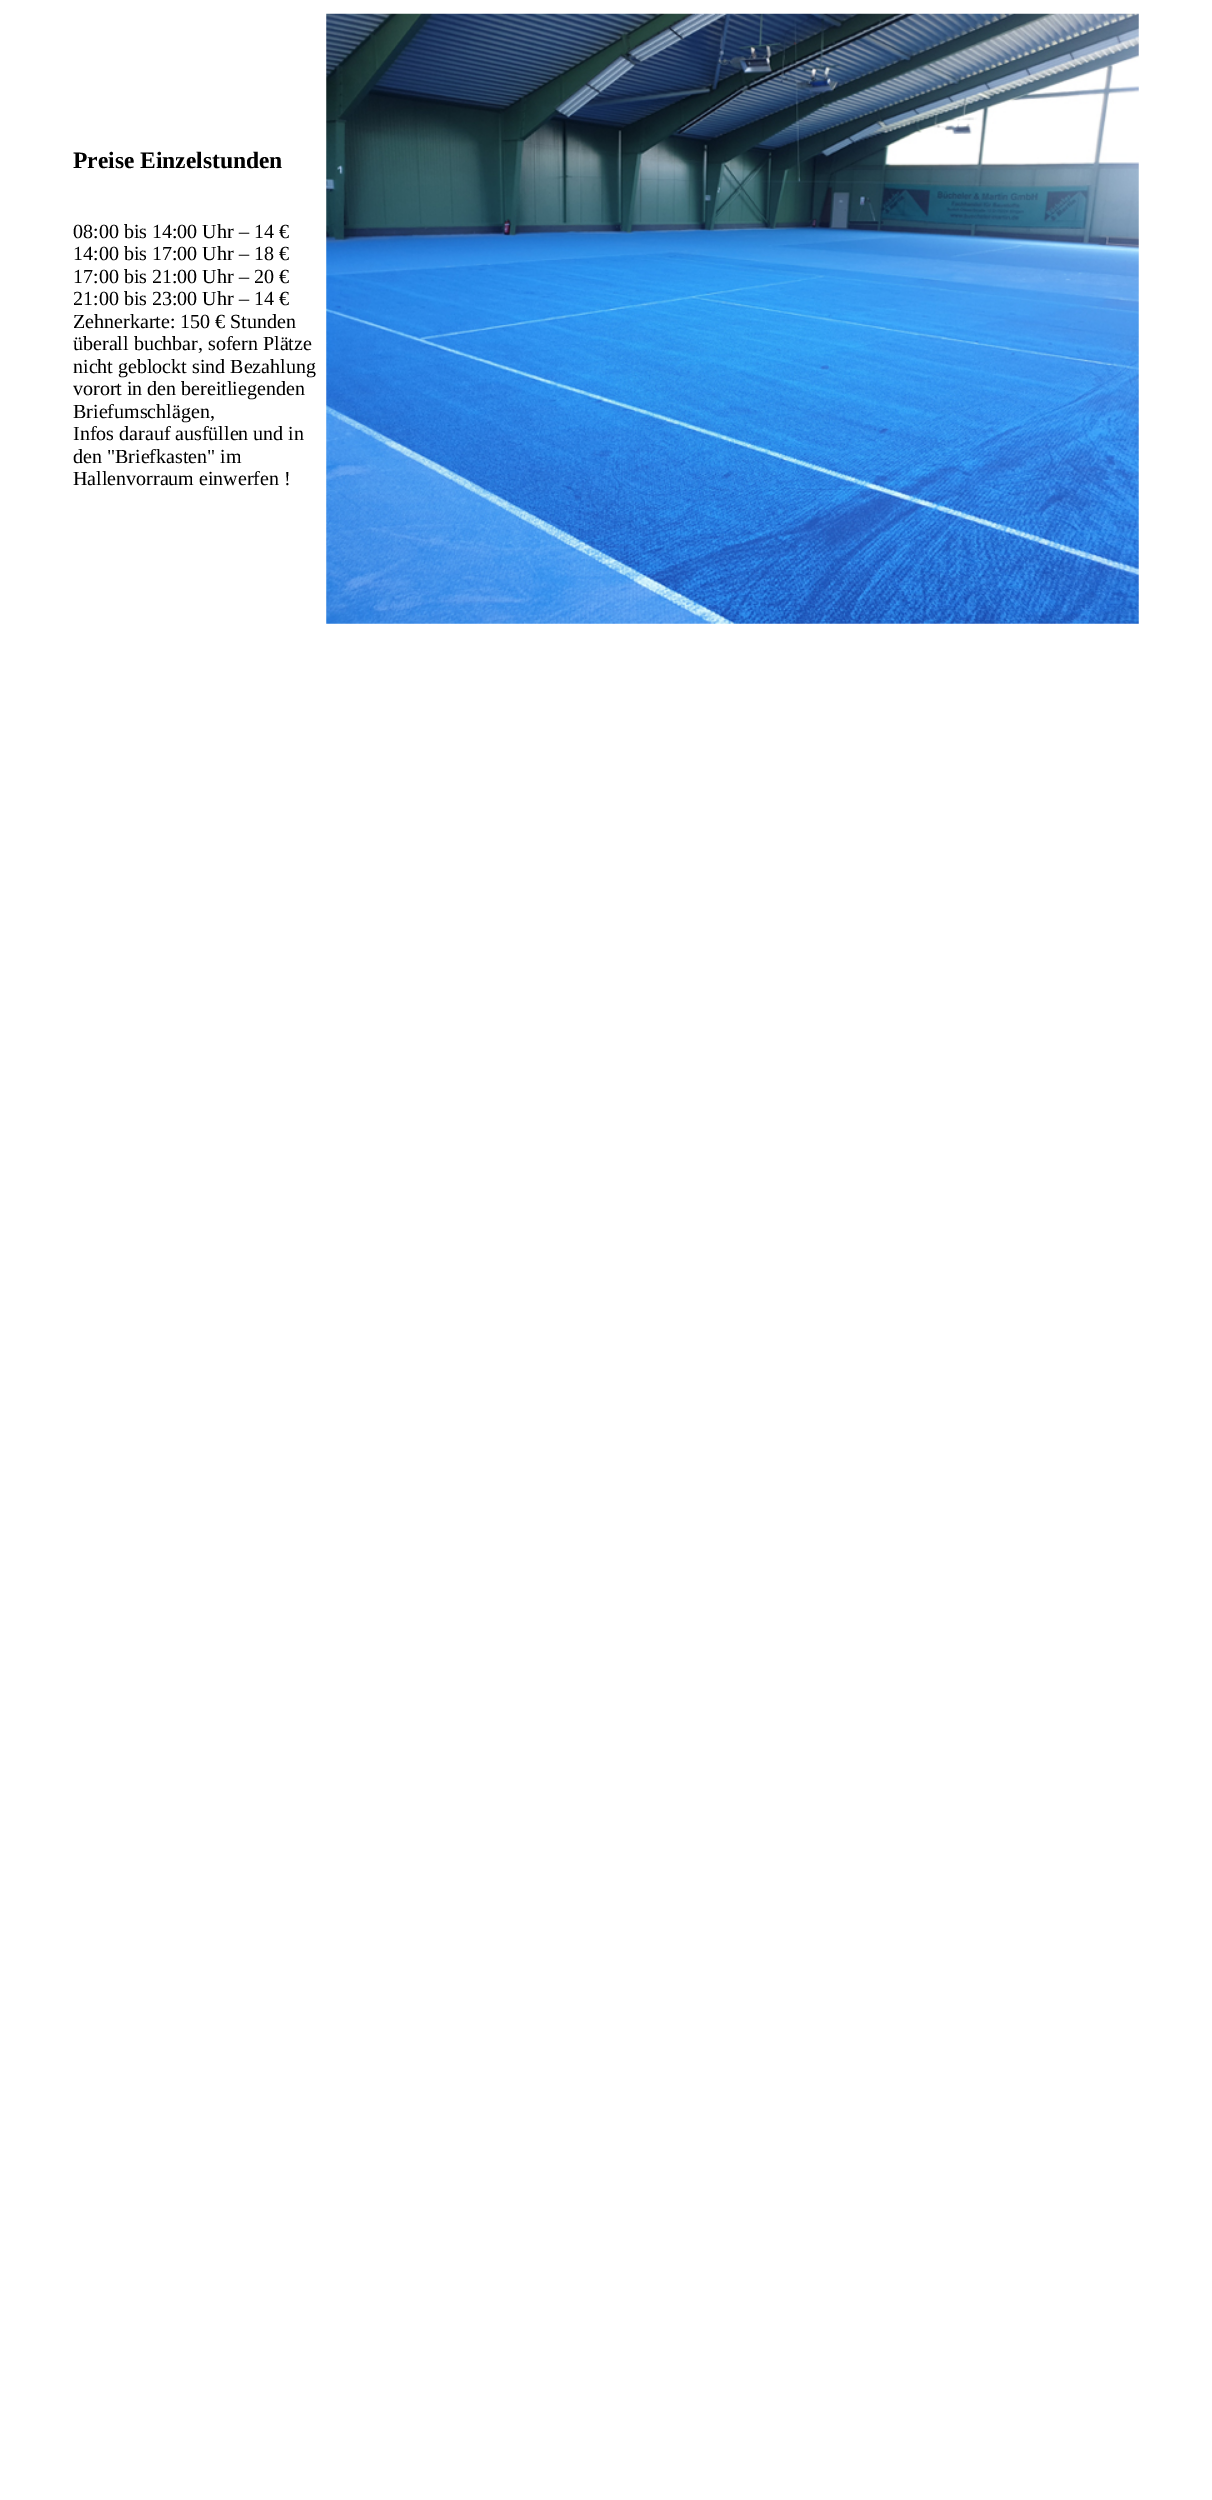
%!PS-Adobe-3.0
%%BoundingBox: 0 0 1212 2500
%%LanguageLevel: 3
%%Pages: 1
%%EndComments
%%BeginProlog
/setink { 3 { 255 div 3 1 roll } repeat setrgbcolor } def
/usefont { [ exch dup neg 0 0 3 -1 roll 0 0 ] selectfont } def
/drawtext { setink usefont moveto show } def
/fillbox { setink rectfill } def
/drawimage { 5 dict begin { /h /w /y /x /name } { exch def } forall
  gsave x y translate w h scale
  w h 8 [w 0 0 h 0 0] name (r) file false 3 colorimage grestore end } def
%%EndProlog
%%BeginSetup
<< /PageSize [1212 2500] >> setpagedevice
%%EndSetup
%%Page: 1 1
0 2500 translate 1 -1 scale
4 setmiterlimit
0 0 1212 2500 255 255 255 fillbox
(Preise Einzelstunden) 73 168 /LiberationSerif-Bold 23.5 0 0 0 drawtext
(08:00 bis 14:00 Uhr – 14 €) 73 238 /LiberationSerif-Regular 20 0 0 0 drawtext
(14:00 bis 17:00 Uhr – 18 €) 73 260 /LiberationSerif-Regular 20 0 0 0 drawtext
(17:00 bis 21:00 Uhr – 20 €) 73 283 /LiberationSerif-Regular 20 0 0 0 drawtext
(21:00 bis 23:00 Uhr – 14 €) 73 305 /LiberationSerif-Regular 20 0 0 0 drawtext
(Zehnerkarte: 150 € Stunden) 73 328 /LiberationSerif-Regular 20 0 0 0 drawtext
(überall buchbar, sofern Plätze) 73 350 /LiberationSerif-Regular 20 0 0 0 drawtext
(nicht geblockt sind Bezahlung) 73 373 /LiberationSerif-Regular 20 0 0 0 drawtext
(vorort in den bereitliegenden) 73 395 /LiberationSerif-Regular 20 0 0 0 drawtext
(Briefumschlägen,) 73 418 /LiberationSerif-Regular 20 0 0 0 drawtext
(Infos darauf ausfüllen und in) 73 440 /LiberationSerif-Regular 20 0 0 0 drawtext
(den "Briefkasten" im) 73 463 /LiberationSerif-Regular 20 0 0 0 drawtext
(Hallenvorraum einwerfen !) 73 485 /LiberationSerif-Regular 20 0 0 0 drawtext
(assets/img1.rgb) 326 13 813 611 drawimage
showpage
%%EOF
